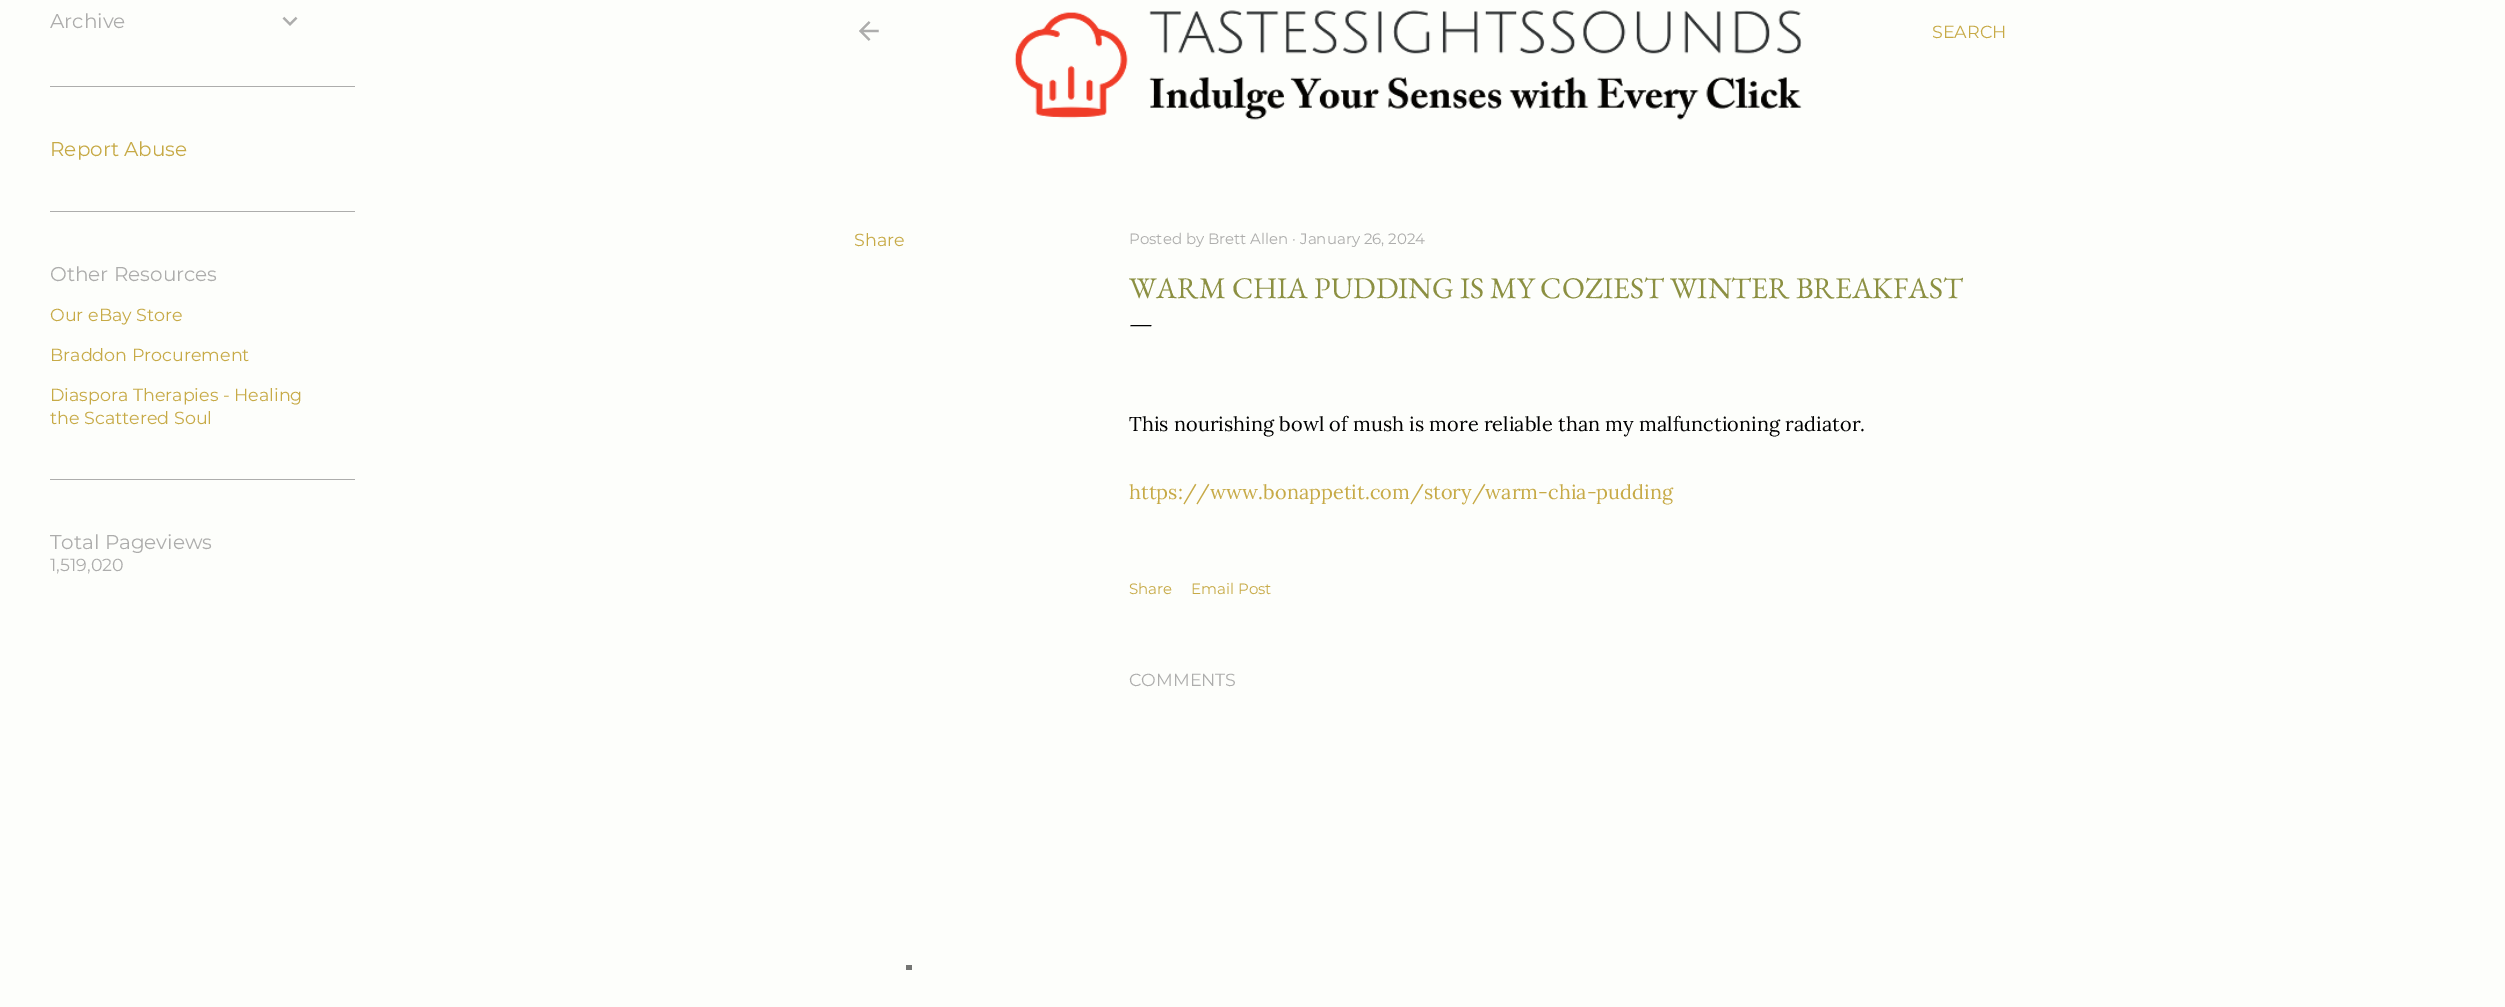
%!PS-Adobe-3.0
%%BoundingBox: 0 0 2505 1007
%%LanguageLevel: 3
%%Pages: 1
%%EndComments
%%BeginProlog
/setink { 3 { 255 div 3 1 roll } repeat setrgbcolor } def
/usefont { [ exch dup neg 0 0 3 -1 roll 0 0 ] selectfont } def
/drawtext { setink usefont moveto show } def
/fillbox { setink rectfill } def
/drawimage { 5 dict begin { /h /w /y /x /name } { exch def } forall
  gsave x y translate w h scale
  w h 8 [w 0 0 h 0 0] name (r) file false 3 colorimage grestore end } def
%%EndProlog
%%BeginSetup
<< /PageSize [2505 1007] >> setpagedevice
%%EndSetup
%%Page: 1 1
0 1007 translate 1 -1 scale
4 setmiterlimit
0 0 2505 1007 253 254 251 fillbox
(Archive) 50 28 /Montserrat-Regular 20 173 173 172 drawtext
(assets/img1.rgb) 282 16 16 10 drawimage
50 86 305 1 173 173 172 fillbox
(Report Abuse) 50 156 /Montserrat-Regular 20 199 170 70 drawtext
50 211 305 1 173 173 172 fillbox
(Other Resources) 50 281 /Montserrat-Regular 20 173 173 172 drawtext
(Our eBay Store) 50 321 /Montserrat-Regular 17.5 199 170 70 drawtext
(Braddon Procurement) 50 361 /Montserrat-Regular 17.5 199 170 70 drawtext
(Diaspora Therapies - Healing) 50 401 /Montserrat-Regular 17.5 199 170 70 drawtext
(the Scattered Soul) 50 424 /Montserrat-Regular 17.5 199 170 70 drawtext
50 479 305 1 173 173 172 fillbox
(Total Pageviews) 50 549 /Montserrat-Regular 20 173 173 172 drawtext
(1,519,020) 50 571 /Montserrat-Regular 17.5 173 173 172 drawtext
(assets/img2.rgb) 859 21 20 20 drawimage
(assets/img3.rgb) 1014 10 788 110 drawimage
(SEARCH) 1932 38 /Montserrat-Regular 17.5 199 170 70 drawtext
(Share) 854 246 /Montserrat-Regular 17.5 199 170 70 drawtext
(Posted by Brett Allen · January 26, 2024) 1129 244 /Montserrat-Regular 15 173 173 172 drawtext
(WARM CHIA PUDDING IS MY COZIEST WINTER BREAKFAST) 1129 298 /EBGaramond-Regular 30 140 144 66 drawtext
(—) 1129 331 /EBGaramond-Regular 25 0 0 0 drawtext
(This nourishing bowl of mush is more reliable than my malfunctioning radiator.) 1129 431 /Lora-Regular 20 0 0 0 drawtext
(https://www.bonappetit.com/story/warm-chia-pudding) 1129 499 /Lora-Regular 20 199 170 70 drawtext
(Share) 1129 594 /Montserrat-Regular 15 199 170 70 drawtext
(Email Post) 1191 594 /Montserrat-Regular 15 199 170 70 drawtext
(COMMENTS) 1129 686 /Montserrat-Regular 17.5 173 173 172 drawtext
906 965 6 5 116 117 115 fillbox
showpage
%%EOF
